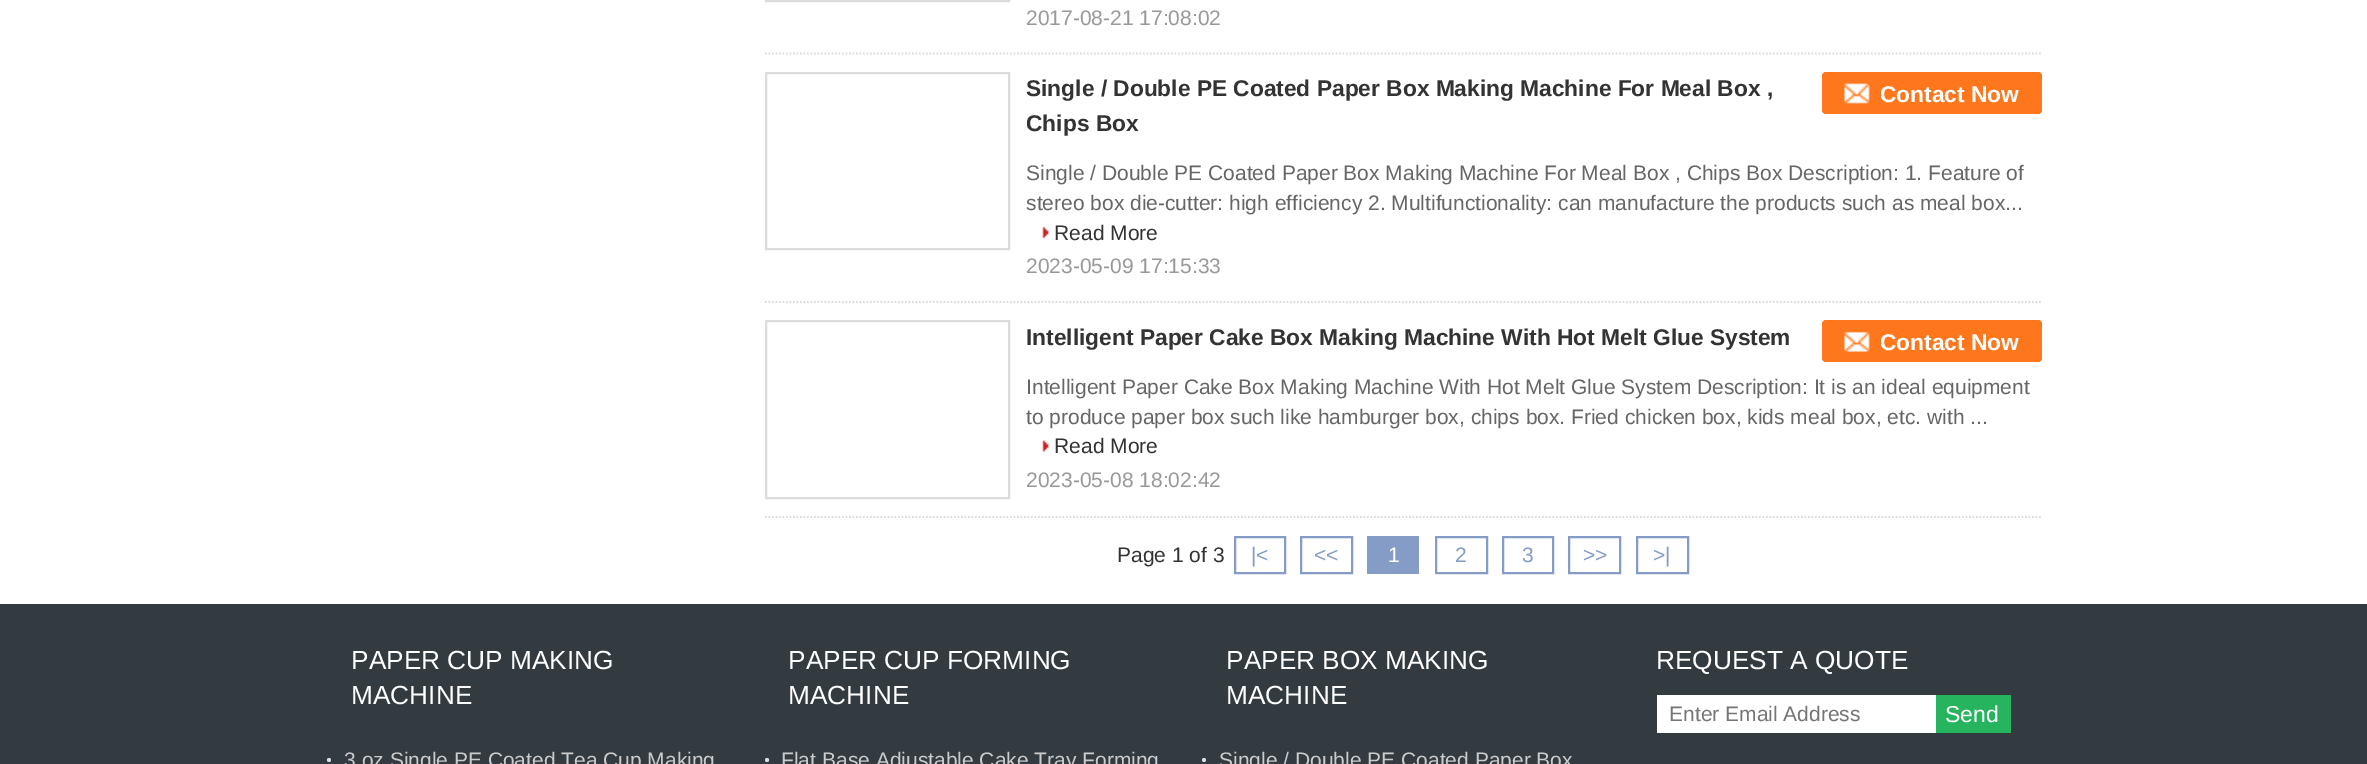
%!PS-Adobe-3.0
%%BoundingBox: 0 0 2367 764
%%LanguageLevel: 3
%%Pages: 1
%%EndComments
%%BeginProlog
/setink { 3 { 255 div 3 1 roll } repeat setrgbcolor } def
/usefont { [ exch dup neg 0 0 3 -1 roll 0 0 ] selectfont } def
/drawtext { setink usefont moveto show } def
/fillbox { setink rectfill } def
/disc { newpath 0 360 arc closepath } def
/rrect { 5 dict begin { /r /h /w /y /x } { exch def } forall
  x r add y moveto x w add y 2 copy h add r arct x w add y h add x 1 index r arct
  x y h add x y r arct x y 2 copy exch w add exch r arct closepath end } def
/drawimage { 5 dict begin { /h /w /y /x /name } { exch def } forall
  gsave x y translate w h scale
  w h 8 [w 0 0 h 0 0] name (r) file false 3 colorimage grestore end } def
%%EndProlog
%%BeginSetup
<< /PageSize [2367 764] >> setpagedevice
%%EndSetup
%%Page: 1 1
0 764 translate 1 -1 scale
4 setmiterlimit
0 0 2367 764 255 255 255 fillbox
220 220 220 setink
1.8 setlinewidth
[1.75 1.75] 0 setdash
765 53.5 moveto 2042 53.5 lineto stroke
2 setlinewidth
[] 0 setdash
766 -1 243 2 rectstroke
(2017-08-21 17:08:02) 1026 25 /LiberationSans-Regular 21 153 153 153 drawtext
220 220 220 setink
1.8 setlinewidth
[1.75 1.75] 0 setdash
765 302 moveto 2042 302 lineto stroke
2 setlinewidth
[] 0 setdash
766 73 243 176 rectstroke
(Single / Double PE Coated Paper Box Making Machine For Meal Box ,) 1026 96 /LiberationSans-Bold 22.75 51 51 51 drawtext
255 119 28 setink
1822 72 220 42 4 rrect fill
(assets/img1.rgb) 1844 83 26 21 drawimage
(Contact Now) 1880 102 /LiberationSans-Bold 22.75 255 255 255 drawtext
(Chips Box) 1026 131 /LiberationSans-Bold 22.75 51 51 51 drawtext
(Single / Double PE Coated Paper Box Making Machine For Meal Box , Chips Box Description: 1. Feature of) 1026 180 /LiberationSans-Regular 21 102 102 102 drawtext
(stereo box die-cutter: high efficiency 2. Multifunctionality: can manufacture the products such as meal box...) 1026 210 /LiberationSans-Regular 21 102 102 102 drawtext
(assets/img2.rgb) 1042 226 7 13 drawimage
(Read More) 1054 240 /LiberationSans-Regular 21 51 51 51 drawtext
(2023-05-09 17:15:33) 1026 273 /LiberationSans-Regular 21 153 153 153 drawtext
220 220 220 setink
1.8 setlinewidth
[1.75 1.75] 0 setdash
765 517 moveto 2042 517 lineto stroke
2 setlinewidth
[] 0 setdash
766 321 243 177 rectstroke
(Intelligent Paper Cake Box Making Machine With Hot Melt Glue System) 1026 345 /LiberationSans-Bold 22.75 51 51 51 drawtext
255 119 28 setink
1822 320 220 42 4 rrect fill
(assets/img3.rgb) 1844 331 26 21 drawimage
(Contact Now) 1880 350 /LiberationSans-Bold 22.75 255 255 255 drawtext
(Intelligent Paper Cake Box Making Machine With Hot Melt Glue System Description: It is an ideal equipment) 1026 394 /LiberationSans-Regular 21 102 102 102 drawtext
(to produce paper box such like hamburger box, chips box. Fried chicken box, kids meal box, etc. with ...) 1026 424 /LiberationSans-Regular 21 102 102 102 drawtext
(assets/img4.rgb) 1042 440 7 12 drawimage
(Read More) 1054 453 /LiberationSans-Regular 21 51 51 51 drawtext
(2023-05-08 18:02:42) 1026 487 /LiberationSans-Regular 21 153 153 153 drawtext
(Page 1 of 3) 1117 562 /LiberationSans-Regular 21 51 51 51 drawtext
132 156 198 setink
1235 537 50 36 rectstroke
(|<) 1251 562 /LiberationSans-Regular 21 132 156 198 drawtext
1301 537 51 36 rectstroke
(<<) 1314 562 /LiberationSans-Regular 21 132 156 198 drawtext
1367 536 52 38 132 156 198 fillbox
(1) 1388 562 /LiberationSans-Regular 21 255 255 255 drawtext
132 156 198 setink
1436 537 51 36 rectstroke
(2) 1455 562 /LiberationSans-Regular 21 132 156 198 drawtext
1503 537 50 36 rectstroke
(3) 1522 562 /LiberationSans-Regular 21 132 156 198 drawtext
1569 537 51 36 rectstroke
(>>) 1583 562 /LiberationSans-Regular 21 132 156 198 drawtext
1637 537 51 36 rectstroke
(>|) 1653 562 /LiberationSans-Regular 21 132 156 198 drawtext
0 604 2367 160 51 59 65 fillbox
(PAPER CUP MAKING) 351 669 /LiberationSans-Regular 26.25 255 255 255 drawtext
(MACHINE) 351 704 /LiberationSans-Regular 26.25 255 255 255 drawtext
221 221 221 setink
329 760 2 disc fill
(3 oz Single PE Coated Tea Cup Making) 344 767 /LiberationSans-Regular 21 204 204 204 drawtext
(PAPER CUP FORMING) 788 669 /LiberationSans-Regular 26.25 255 255 255 drawtext
(MACHINE) 788 704 /LiberationSans-Regular 26.25 255 255 255 drawtext
221 221 221 setink
767 760 2 disc fill
(Flat Base Adjustable Cake Tray Forming) 781 767 /LiberationSans-Regular 21 204 204 204 drawtext
(PAPER BOX MAKING) 1226 669 /LiberationSans-Regular 26.25 255 255 255 drawtext
(MACHINE) 1226 704 /LiberationSans-Regular 26.25 255 255 255 drawtext
221 221 221 setink
1204 760 2 disc fill
(Single / Double PE Coated Paper Box) 1219 767 /LiberationSans-Regular 21 204 204 204 drawtext
(REQUEST A QUOTE) 1656 669 /LiberationSans-Regular 26.25 255 255 255 drawtext
1657 695 279 38 255 255 255 fillbox
(Enter Email Address) 1669 721 /LiberationSans-Regular 21 117 117 117 drawtext
1936 695 75 38 39 180 95 fillbox
(Send) 1945 722 /LiberationSans-Regular 23 255 255 255 drawtext
showpage
%%EOF
